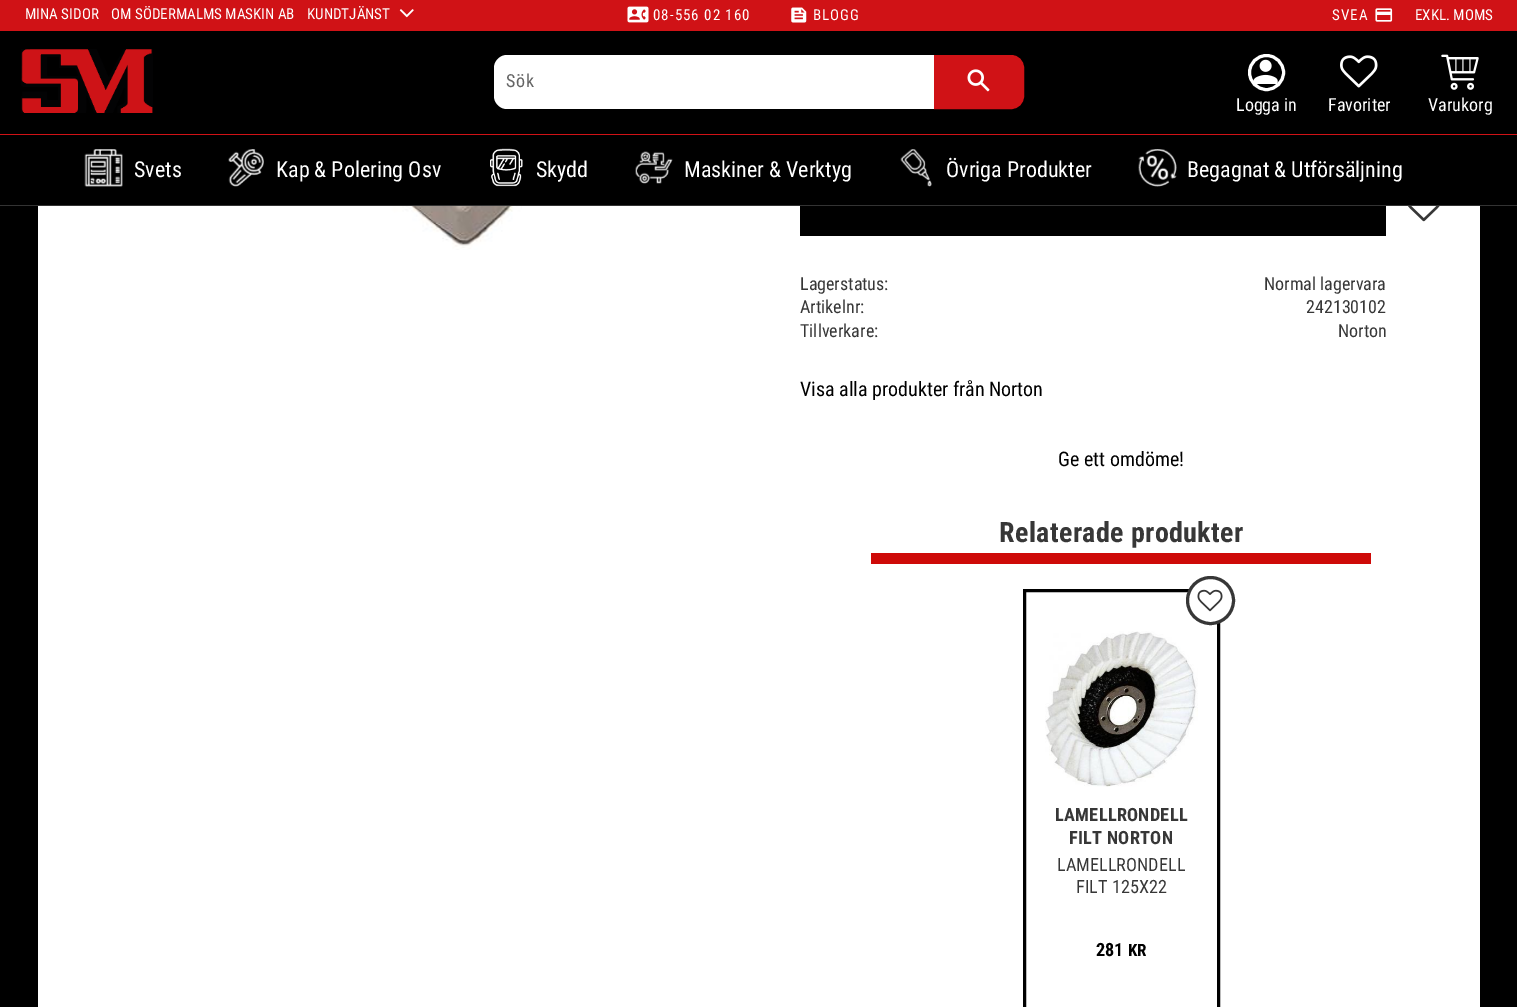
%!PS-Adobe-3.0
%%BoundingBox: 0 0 1517 1007
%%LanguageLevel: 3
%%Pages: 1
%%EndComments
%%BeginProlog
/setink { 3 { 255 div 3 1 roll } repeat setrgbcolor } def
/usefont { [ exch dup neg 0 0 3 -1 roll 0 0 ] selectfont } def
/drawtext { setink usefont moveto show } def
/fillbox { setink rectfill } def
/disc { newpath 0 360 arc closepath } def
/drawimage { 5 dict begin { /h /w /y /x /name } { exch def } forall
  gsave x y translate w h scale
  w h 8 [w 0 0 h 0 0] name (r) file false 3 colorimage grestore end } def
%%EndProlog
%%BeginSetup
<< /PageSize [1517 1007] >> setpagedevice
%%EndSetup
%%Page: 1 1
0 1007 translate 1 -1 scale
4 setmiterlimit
0 0 1517 1007 0 0 0 fillbox
0 0 1517 31 208 18 22 fillbox
(MINA SIDOR) 25 19 /RobotoCondensed-Regular 15 255 255 255 drawtext
(OM SÖDERMALMS MASKIN AB) 111 19 /RobotoCondensed-Regular 15 255 255 255 drawtext
(KUNDTJÄNST) 307 19 /RobotoCondensed-Regular 15 255 255 255 drawtext
(assets/img1.rgb) 399 9 15 9 drawimage
(assets/img2.rgb) 627 6 22 17 drawimage
653 20 moveto 1 0 (08-556 02 160) ashow
(assets/img3.rgb) 791 7 16 16 drawimage
813 20 moveto 1 0 (BLOGG) ashow
1332 20 moveto 1 0 (SVEA) ashow
(assets/img4.rgb) 1375 8 18 14 drawimage
(EXKL. MOMS) 1415 20 /RobotoCondensed-Regular 15 255 255 255 drawtext
(assets/img5.rgb) 21 49 132 64 drawimage
507 55 moveto 934 55 lineto 934 109 lineto 507 109 lineto 500 109 494 103 494 96 curveto 494 68 lineto 494 61 500 55 507 55 curveto closepath fill
/RobotoCondensed-Regular 18 usefont
100 100 100 setink
506 87 moveto 1 0 (Sök) ashow
208 18 22 setink
935.5 56.5 moveto 1011 56.5 lineto 1017.5 56.5 1022.5 61.5 1022.5 68 curveto 1022.5 96 lineto 1022.5 102.5 1017.5 107.5 1011 107.5 curveto 935.5 107.5 lineto closepath gsave fill grestore
3 setlinewidth
stroke
(assets/img6.rgb) 967 69 23 23 drawimage
(assets/img7.rgb) 1253 59 25 25 drawimage
255 255 255 setink
1266.5 72.5 17 disc stroke
(Logga in) 1236 111 /RobotoCondensed-Regular 18 255 255 255 drawtext
(assets/img8.rgb) 1340 55 38 33 drawimage
(Favoriter) 1328 111 /RobotoCondensed-Regular 18 255 255 255 drawtext
(assets/img9.rgb) 1441 54 38 36 drawimage
(Varukorg) 1428 111 /RobotoCondensed-Regular 18 255 255 255 drawtext
0 134 1517 1 208 18 22 fillbox
0 205 1517 1 51 51 51 fillbox
(assets/img10.rgb) 84 149 39 38 drawimage
(Svets) 134 177 /RobotoCondensed-Regular 22 255 255 255 drawtext
(assets/img11.rgb) 228 149 36 38 drawimage
(Kap & Polering Osv) 276 177 /RobotoCondensed-Regular 22 255 255 255 drawtext
(assets/img12.rgb) 490 148 33 39 drawimage
(Skydd) 536 177 /RobotoCondensed-Regular 22 255 255 255 drawtext
(assets/img13.rgb) 635 151 38 33 drawimage
(Maskiner & Verktyg) 684 177 /RobotoCondensed-Regular 22 255 255 255 drawtext
(assets/img14.rgb) 900 149 32 38 drawimage
(Övriga Produkter) 946 177 /RobotoCondensed-Regular 22 255 255 255 drawtext
(assets/img15.rgb) 1138 149 39 38 drawimage
(Begagnat & Utförsäljning) 1187 177 /RobotoCondensed-Regular 22 255 255 255 drawtext
38 206 1442 801 255 255 255 fillbox
(assets/img16.rgb) 313 206 209 44 drawimage
800 206 586 30 0 0 0 fillbox
(assets/img17.rgb) 1408 206 32 16 drawimage
(Lagerstatus:) 800 290 /RobotoCondensed-Regular 18 55 55 55 drawtext
(Normal lagervara) 1264 290 /RobotoCondensed-Regular 18 55 55 55 drawtext
(Artikelnr:) 800 313 /RobotoCondensed-Regular 18 55 55 55 drawtext
(242130102) 1306 313 /RobotoCondensed-Regular 18 55 55 55 drawtext
(Tillverkare:) 800 337 /RobotoCondensed-Regular 18 55 55 55 drawtext
(Norton) 1338 337 /RobotoCondensed-Regular 18 55 55 55 drawtext
(Visa alla produkter från Norton) 800 396 /RobotoCondensed-Regular 20 0 0 0 drawtext
(Ge ett omdöme!) 1058 466 /RobotoCondensed-Regular 20 0 0 0 drawtext
871 553 500 11 206 10 8 fillbox
/RobotoCondensed-Bold 28 usefont
55 55 55 setink
999 542 moveto 0.4 0 (Relaterade produkter) ashow
0 0 0 setink
1024.5 590.5 194 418 rectstroke
255 255 255 setink
1210.5 600.5 23 disc gsave fill grestore
55 55 55 setink
stroke
(assets/img18.rgb) 1197 589 26 23 drawimage
(assets/img19.rgb) 1045 631 153 156 drawimage
/RobotoCondensed-Bold 18.25 usefont
1055 821 moveto 0.3 0 (LAMELLRONDELL) ashow
1069 844 moveto 0.3 0 (FILT NORTON) ashow
(LAMELLRONDELL) 1057 871 /RobotoCondensed-Regular 18.25 55 55 55 drawtext
(FILT 125X22) 1076 893 /RobotoCondensed-Regular 18.25 55 55 55 drawtext
(281) 1096 956 /RobotoCondensed-Bold 18.25 0 0 0 drawtext
(KR) 1128 956 /RobotoCondensed-Bold 17 0 0 0 drawtext
showpage
%%EOF
